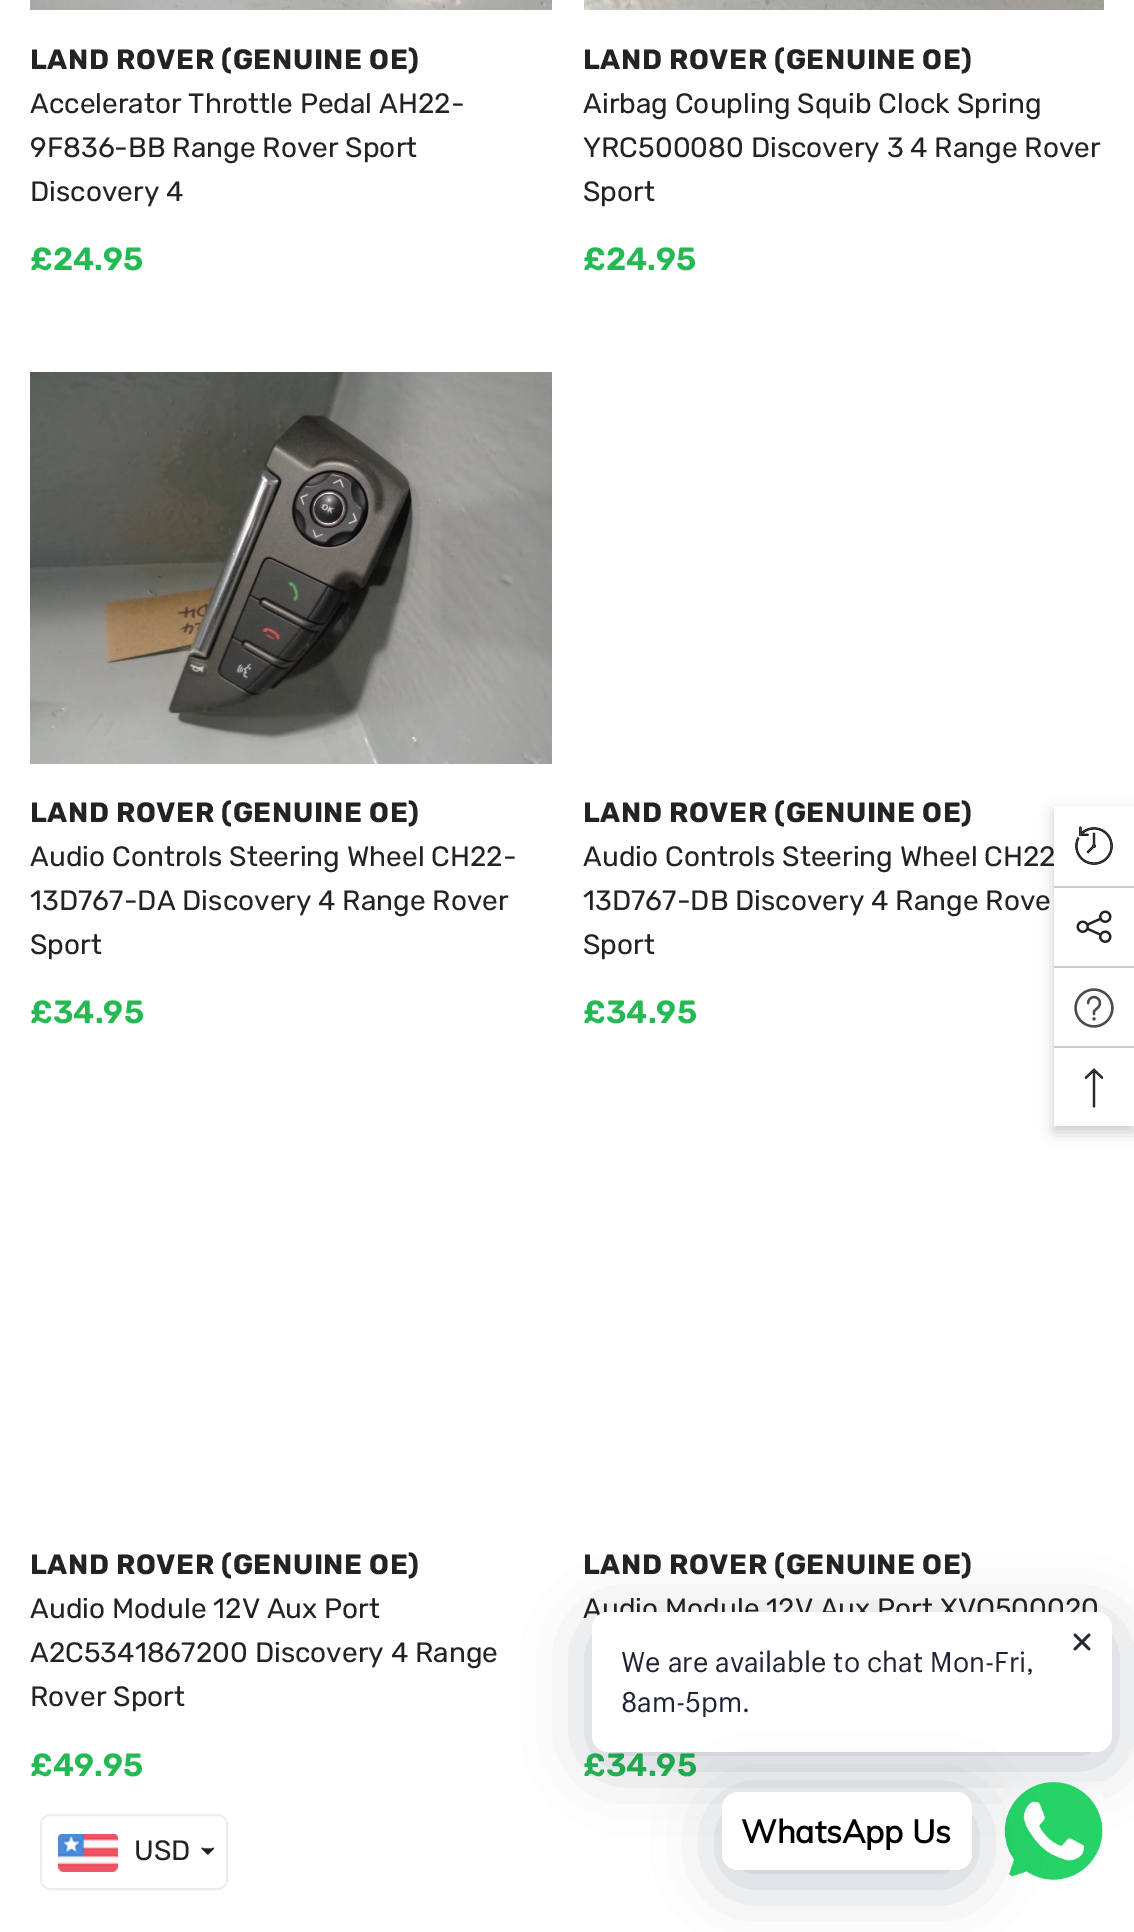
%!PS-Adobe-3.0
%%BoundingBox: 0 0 1134 1932
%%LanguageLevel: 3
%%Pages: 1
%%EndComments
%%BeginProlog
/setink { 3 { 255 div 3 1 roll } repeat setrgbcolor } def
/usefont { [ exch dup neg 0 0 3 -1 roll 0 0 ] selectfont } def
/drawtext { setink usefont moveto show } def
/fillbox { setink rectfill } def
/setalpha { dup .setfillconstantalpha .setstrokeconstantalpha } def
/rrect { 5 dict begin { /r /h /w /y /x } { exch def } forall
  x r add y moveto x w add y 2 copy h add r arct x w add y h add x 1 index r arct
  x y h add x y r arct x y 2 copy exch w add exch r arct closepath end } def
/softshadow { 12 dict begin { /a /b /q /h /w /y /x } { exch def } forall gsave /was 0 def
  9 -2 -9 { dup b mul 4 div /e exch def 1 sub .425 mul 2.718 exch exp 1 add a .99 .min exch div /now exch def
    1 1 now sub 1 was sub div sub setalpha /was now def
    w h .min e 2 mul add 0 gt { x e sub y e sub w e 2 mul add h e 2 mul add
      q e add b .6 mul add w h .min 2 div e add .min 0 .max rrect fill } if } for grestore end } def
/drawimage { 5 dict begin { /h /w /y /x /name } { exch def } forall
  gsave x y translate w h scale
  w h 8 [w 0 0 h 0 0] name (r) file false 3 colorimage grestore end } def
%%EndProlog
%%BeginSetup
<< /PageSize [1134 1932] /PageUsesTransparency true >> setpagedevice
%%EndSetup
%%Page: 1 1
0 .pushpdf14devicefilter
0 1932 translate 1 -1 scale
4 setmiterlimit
0 0 1134 1932 255 255 255 fillbox
(assets/img1.rgb) 30 0 522 10 drawimage
/Rubik-Bold 28 usefont
35 35 35 setink
30 69 moveto 0.6 0 (LAND ROVER \(GENUINE OE\)) ashow
(Accelerator Throttle Pedal AH22-) 30 113 /Rubik-Regular 28 35 35 35 drawtext
(9F836-BB Range Rover Sport) 30 157 /Rubik-Regular 28 35 35 35 drawtext
(Discovery 4) 30 201 /Rubik-Regular 28 35 35 35 drawtext
(£24.95) 30 270 /Rubik-SemiBold 32 36 185 83 drawtext
(assets/img2.rgb) 584 0 520 10 drawimage
/Rubik-Bold 28 usefont
35 35 35 setink
583 69 moveto 0.6 0 (LAND ROVER \(GENUINE OE\)) ashow
(Airbag Coupling Squib Clock Spring) 583 113 /Rubik-Regular 28 35 35 35 drawtext
(YRC500080 Discovery 3 4 Range Rover) 583 157 /Rubik-Regular 28 35 35 35 drawtext
(Sport) 583 201 /Rubik-Regular 28 35 35 35 drawtext
(£24.95) 583 270 /Rubik-SemiBold 32 36 185 83 drawtext
(assets/img3.rgb) 30 372 522 392 drawimage
/Rubik-Bold 28 usefont
35 35 35 setink
30 822 moveto 0.6 0 (LAND ROVER \(GENUINE OE\)) ashow
(Audio Controls Steering Wheel CH22-) 30 866 /Rubik-Regular 28 35 35 35 drawtext
(13D767-DA Discovery 4 Range Rover) 30 910 /Rubik-Regular 28 35 35 35 drawtext
(Sport) 30 954 /Rubik-Regular 28 35 35 35 drawtext
(£34.95) 30 1023 /Rubik-SemiBold 32 36 185 83 drawtext
/Rubik-Bold 28 usefont
35 35 35 setink
583 822 moveto 0.6 0 (LAND ROVER \(GENUINE OE\)) ashow
(Audio Controls Steering Wheel CH22) 583 866 /Rubik-Regular 28 35 35 35 drawtext
(13D767-DB Discovery 4 Range Rove) 583 910 /Rubik-Regular 28 35 35 35 drawtext
(Sport) 583 954 /Rubik-Regular 28 35 35 35 drawtext
(£34.95) 583 1023 /Rubik-SemiBold 32 36 185 83 drawtext
/Rubik-Bold 28 usefont
35 35 35 setink
30 1574 moveto 0.6 0 (LAND ROVER \(GENUINE OE\)) ashow
(Audio Module 12V Aux Port) 30 1618 /Rubik-Regular 28 35 35 35 drawtext
(A2C5341867200 Discovery 4 Range) 30 1662 /Rubik-Regular 28 35 35 35 drawtext
(Rover Sport) 30 1706 /Rubik-Regular 28 35 35 35 drawtext
(£49.95) 30 1776 /Rubik-SemiBold 32 36 185 83 drawtext
/Rubik-Bold 28 usefont
35 35 35 setink
583 1574 moveto 0.6 0 (LAND ROVER \(GENUINE OE\)) ashow
(Audio Module 12V Aux Port XVO500020) 583 1618 /Rubik-Regular 28 35 35 35 drawtext
(£34.95) 583 1776 /Rubik-SemiBold 32 36 185 83 drawtext
0 0 0 setink
1054 812 80 320 0 7 0.2 softshadow
1054 806 80 320 255 255 255 fillbox
(assets/img4.rgb) 1075 826 38 39 drawimage
1054 886 80 2 204 204 204 fillbox
(assets/img5.rgb) 1076 910 36 33 drawimage
1054 966 80 2 204 204 204 fillbox
(assets/img6.rgb) 1074 988 40 40 drawimage
1054 1046 80 2 204 204 204 fillbox
(assets/img7.rgb) 1084 1068 20 40 drawimage
237 237 237 setink
2 setlinewidth
41 1815 186 74 9 rrect stroke
(assets/img8.rgb) 58 1834 60 38 drawimage
(USD) 134 1860 /Rubik-Regular 28 35 35 35 drawtext
(assets/img9.rgb) 201 1847 14 8 drawimage
0 18 46 setink
592 1624 520 140 16 32 0.24 softshadow
255 255 255 setink
592 1612 520 140 16 rrect fill
(assets/img10.rgb) 1073 1633 18 18 drawimage
(We are available to chat Mon-Fri,) 621 1672 /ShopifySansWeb-Regular 28 30 36 51 drawtext
(8am-5pm.) 621 1712 /ShopifySansWeb-Regular 28 30 36 51 drawtext
(assets/img11.rgb) 1004 1781 99 99 drawimage
0 18 46 setink
722 1804 250 78 16 32 0.24 softshadow
255 255 255 setink
722 1792 250 78 16 rrect fill
(WhatsApp Us) 741 1843 /Muli-Bold 32 0 0 0 drawtext
.poppdf14devicefilter showpage
%%EOF
